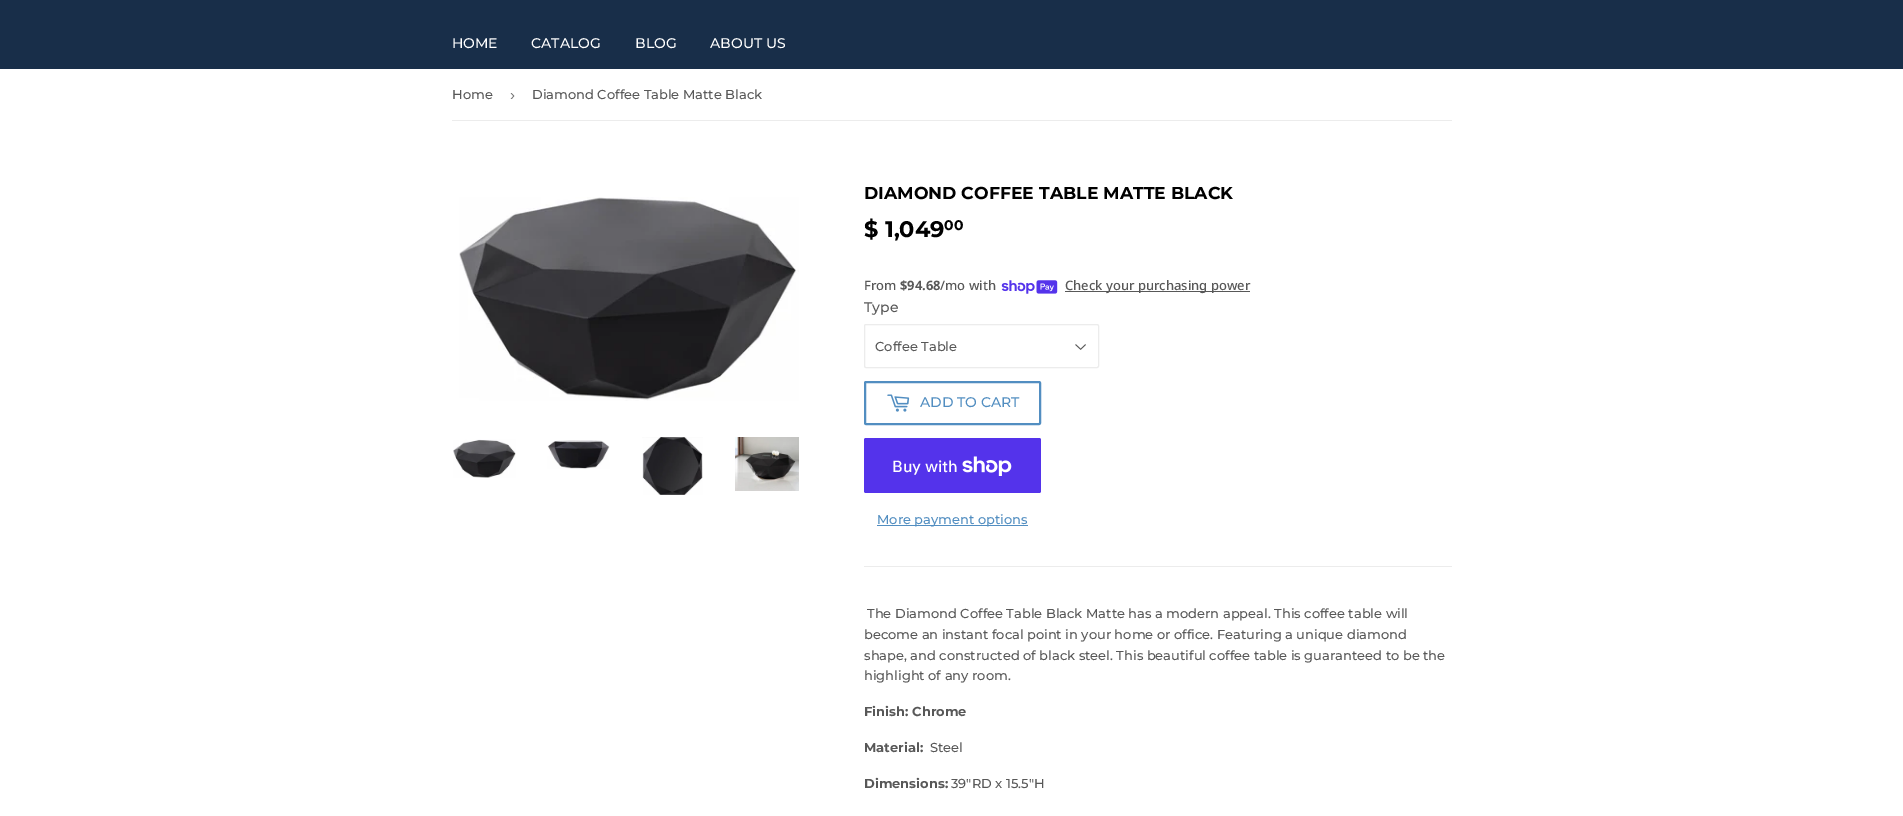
%!PS-Adobe-3.0
%%BoundingBox: 0 0 1903 816
%%LanguageLevel: 3
%%Pages: 1
%%EndComments
%%BeginProlog
/setink { 3 { 255 div 3 1 roll } repeat setrgbcolor } def
/usefont { [ exch dup neg 0 0 3 -1 roll 0 0 ] selectfont } def
/drawtext { setink usefont moveto show } def
/fillbox { setink rectfill } def
/rrect { 5 dict begin { /r /h /w /y /x } { exch def } forall
  x r add y moveto x w add y 2 copy h add r arct x w add y h add x 1 index r arct
  x y h add x y r arct x y 2 copy exch w add exch r arct closepath end } def
/drawimage { 5 dict begin { /h /w /y /x /name } { exch def } forall
  gsave x y translate w h scale
  w h 8 [w 0 0 h 0 0] name (r) file false 3 colorimage grestore end } def
%%EndProlog
%%BeginSetup
<< /PageSize [1903 816] >> setpagedevice
%%EndSetup
%%Page: 1 1
0 816 translate 1 -1 scale
4 setmiterlimit
0 0 1903 816 255 255 255 fillbox
0 0 1903 69 24 46 73 fillbox
(HOME) 452 48 /Montserrat-Medium 14 255 255 255 drawtext
(CATALOG) 531 48 /Montserrat-Medium 14 255 255 255 drawtext
(BLOG) 635 48 /Montserrat-Medium 14 255 255 255 drawtext
(ABOUT US) 710 48 /Montserrat-Medium 14 255 255 255 drawtext
452 120 1000 1 236 236 236 fillbox
(Home) 452 99 /Montserrat-Medium 13 88 88 88 drawtext
(›) 510 100 /LiberationSans-Regular 15 118 118 118 drawtext
(Diamond Coffee Table Matte Black) 532 99 /Montserrat-Medium 13 88 88 88 drawtext
(assets/img1.rgb) 459 197 340 204 drawimage
(assets/img2.rgb) 453 439 63 39 drawimage
(assets/img3.rgb) 547 440 63 29 drawimage
(assets/img4.rgb) 642 437 61 58 drawimage
(assets/img5.rgb) 735 437 64 54 drawimage
(DIAMOND COFFEE TABLE MATTE BLACK) 864 199 /Montserrat-Bold 17.3 0 0 0 drawtext
($ 1,049) 864 237 /Montserrat-Bold 22.5 0 0 0 drawtext
(00) 944 230 /Montserrat-Bold 14 0 0 0 drawtext
(From) 864 290 /NotoSans-Medium 13 88 88 88 drawtext
($94.68) 900 290 /NotoSans-Bold 13 88 88 88 drawtext
(/mo with) 940 290 /NotoSans-Medium 13 88 88 88 drawtext
(assets/img6.rgb) 1001 280 57 14 drawimage
1065 291 185 1 88 88 88 fillbox
(Check your purchasing power) 1065 290 /NotoSans-Medium 13 88 88 88 drawtext
(Type) 864 312 /Montserrat-Medium 14 88 88 88 drawtext
(assets/img7.rgb) 1075 344 11 6 drawimage
236 236 236 setink
864.5 324.5 234 43 1.5 rrect stroke
(Coffee Table) 875 351 /Montserrat-Medium 13 88 88 88 drawtext
82 142 193 setink
2 setlinewidth
865 382 175 42 1 rrect stroke
(assets/img8.rgb) 887 394 23 18 drawimage
(ADD TO CART) 920 407 /Montserrat-Medium 14 82 142 193 drawtext
84 51 235 setink
864 438 177 55 2 rrect fill
(Buy with) 892 472 /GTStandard-Medium 16 255 255 255 drawtext
(assets/img9.rgb) 962 456 50 20 drawimage
877 525 151 1 82 142 193 fillbox
(More payment options) 877 524 /Montserrat-Medium 13 82 142 193 drawtext
864 566 588 1 236 236 236 fillbox
(The Diamond Coffee Table Black Matte has a modern appeal. This coffee table will) 867 618 /Montserrat-Medium 13 88 88 88 drawtext
(become an instant focal point in your home or office. Featuring a unique diamond) 864 639 /Montserrat-Medium 13 88 88 88 drawtext
(shape, and constructed of black steel. This beautiful coffee table is guaranteed to be the) 864 660 /Montserrat-Medium 13 88 88 88 drawtext
(highlight of any room.) 864 680 /Montserrat-Medium 13 88 88 88 drawtext
(Finish: Chrome) 864 716 /Montserrat-Bold 13 88 88 88 drawtext
(Material:) 864 752 /Montserrat-Bold 13 88 88 88 drawtext
(Steel) 930 752 /Montserrat-Medium 13 88 88 88 drawtext
(Dimensions:) 864 788 /Montserrat-Bold 13 88 88 88 drawtext
(39"RD x 15.5"H) 951 788 /Montserrat-Medium 13 88 88 88 drawtext
showpage
%%EOF
